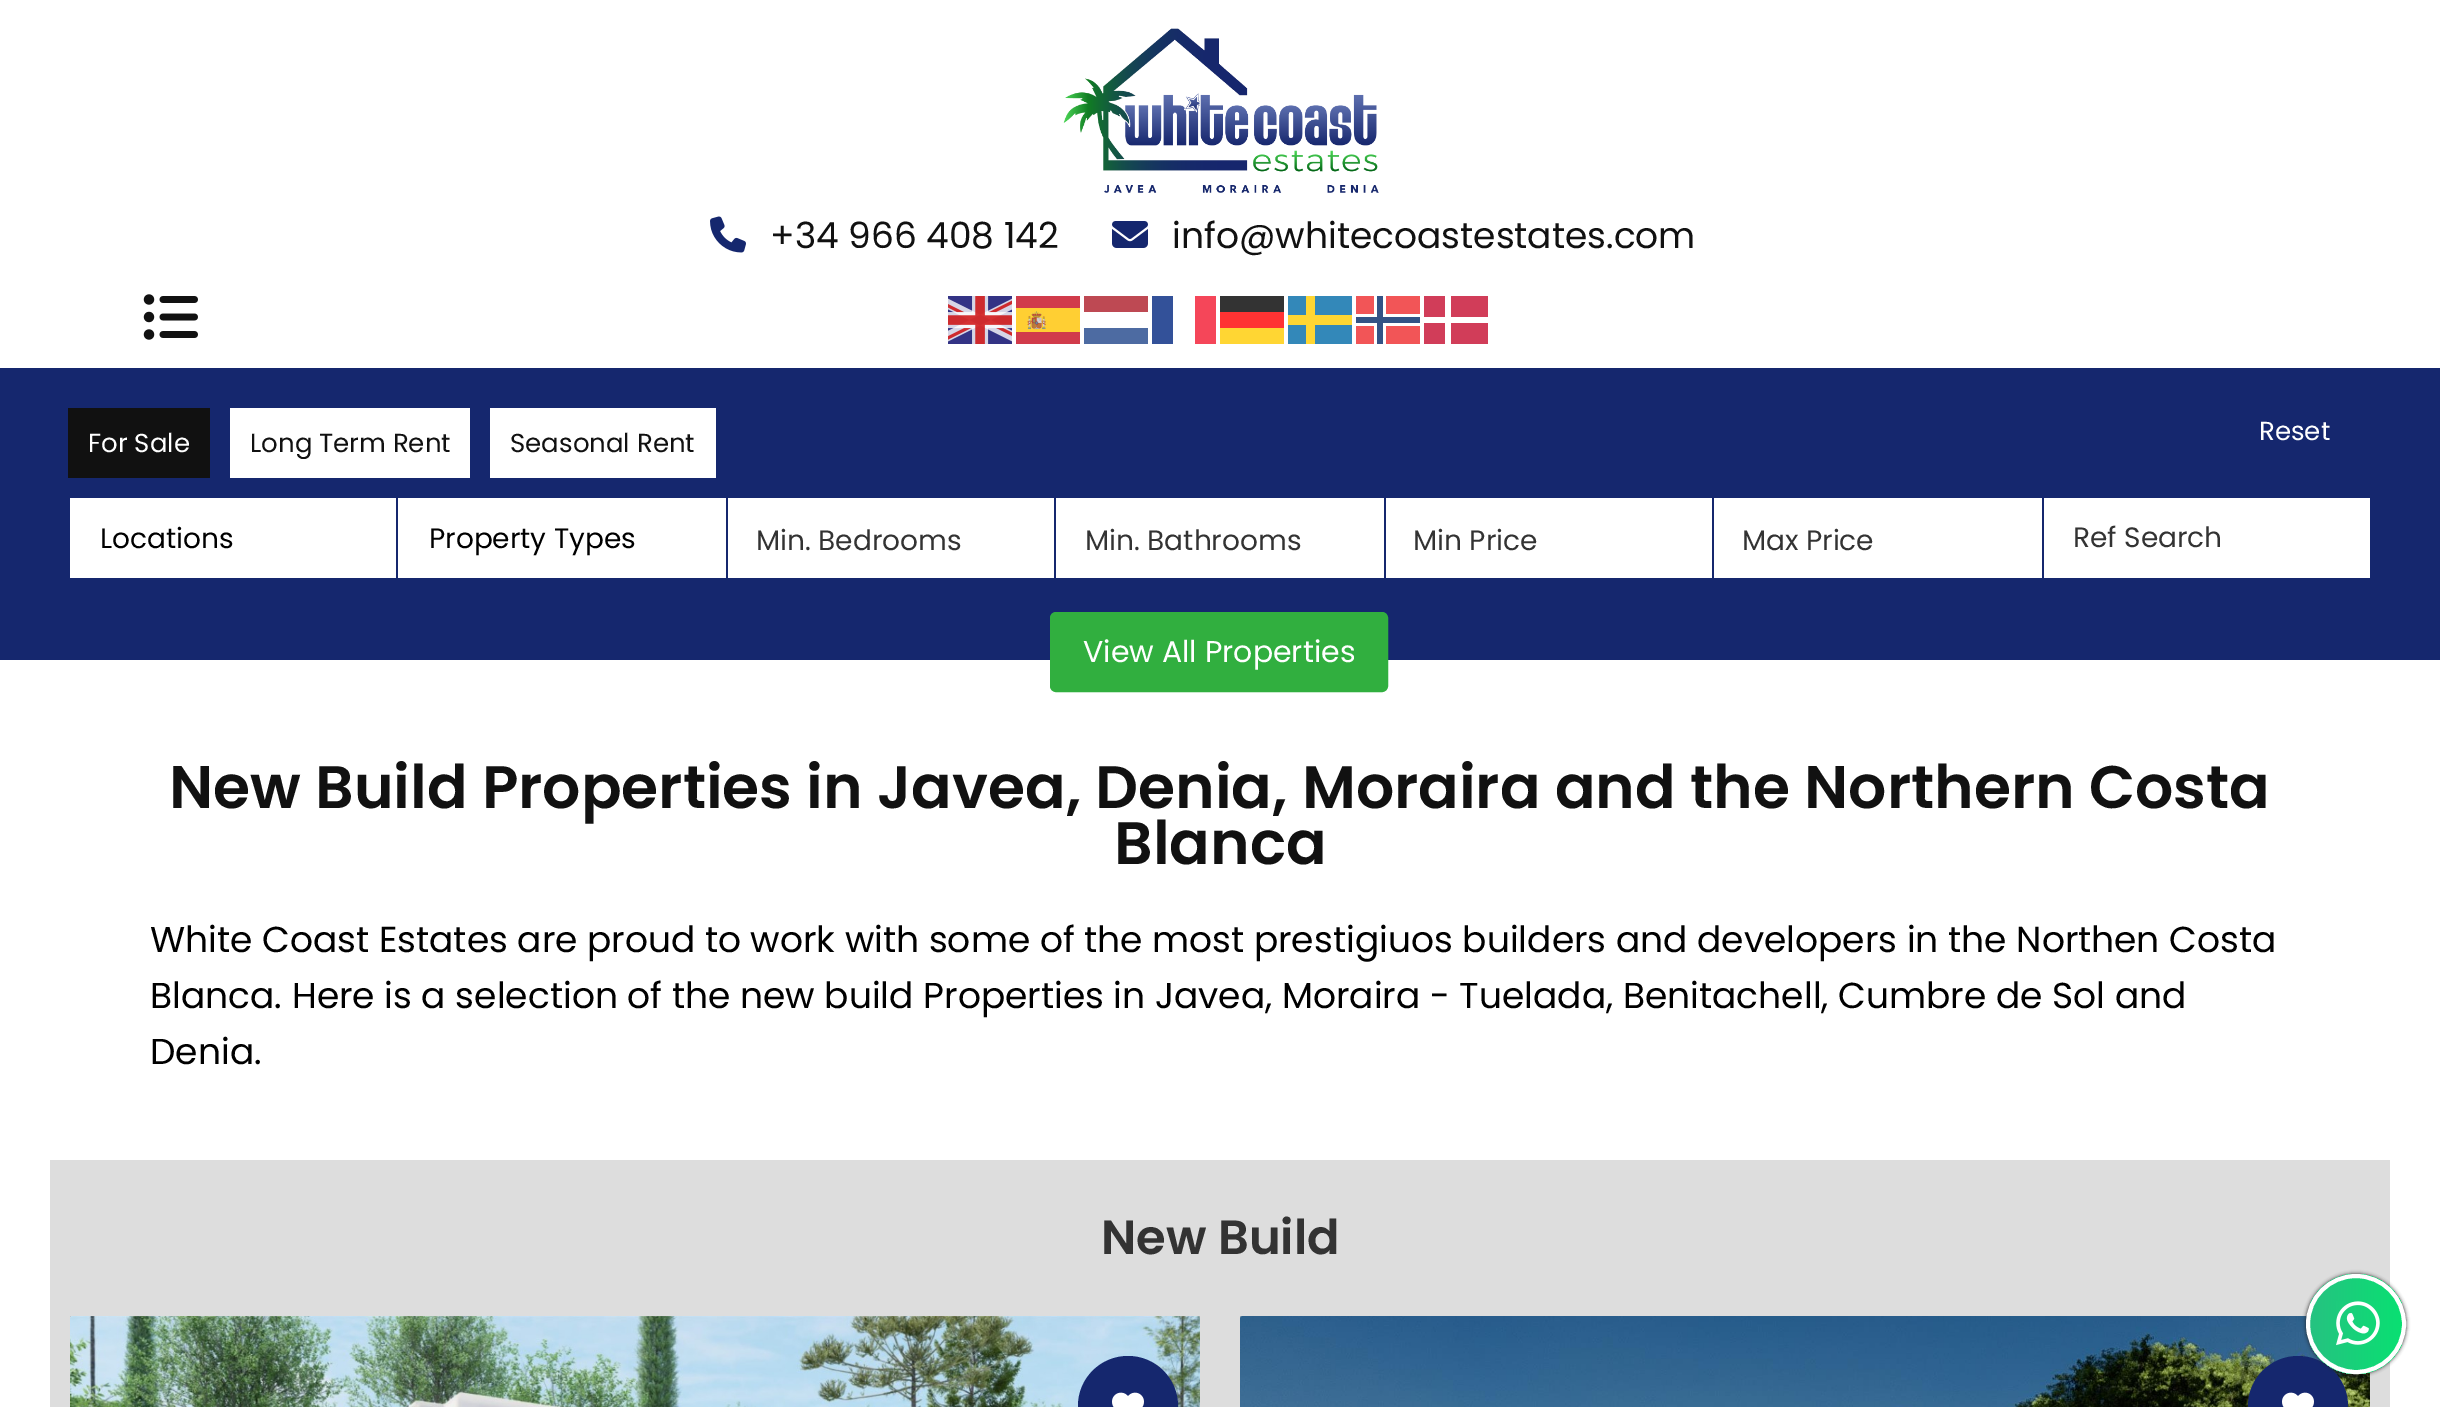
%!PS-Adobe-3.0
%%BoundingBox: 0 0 2440 1407
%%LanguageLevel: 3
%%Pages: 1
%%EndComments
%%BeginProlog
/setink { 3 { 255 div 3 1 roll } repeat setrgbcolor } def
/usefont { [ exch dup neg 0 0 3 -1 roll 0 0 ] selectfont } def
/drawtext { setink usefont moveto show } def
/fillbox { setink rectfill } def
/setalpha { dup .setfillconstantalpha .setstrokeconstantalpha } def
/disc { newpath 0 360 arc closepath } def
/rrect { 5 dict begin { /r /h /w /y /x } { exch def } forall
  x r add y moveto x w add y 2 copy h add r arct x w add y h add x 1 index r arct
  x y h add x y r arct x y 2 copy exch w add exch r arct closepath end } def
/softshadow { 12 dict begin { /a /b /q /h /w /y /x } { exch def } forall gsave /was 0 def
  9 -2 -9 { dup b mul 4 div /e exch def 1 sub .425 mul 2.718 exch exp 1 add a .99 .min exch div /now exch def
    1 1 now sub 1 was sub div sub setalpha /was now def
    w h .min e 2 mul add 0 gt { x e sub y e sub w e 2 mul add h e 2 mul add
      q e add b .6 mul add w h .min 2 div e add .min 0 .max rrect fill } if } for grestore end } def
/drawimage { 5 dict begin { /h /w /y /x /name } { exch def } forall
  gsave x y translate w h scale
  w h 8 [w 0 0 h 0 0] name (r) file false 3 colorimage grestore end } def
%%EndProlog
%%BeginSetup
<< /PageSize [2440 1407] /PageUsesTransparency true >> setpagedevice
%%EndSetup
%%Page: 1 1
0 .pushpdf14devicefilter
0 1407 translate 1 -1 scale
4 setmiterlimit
0 0 2440 1407 255 255 255 fillbox
(assets/img1.rgb) 1063 28 316 165 drawimage
(assets/img2.rgb) 710 216 36 37 drawimage
(+34 966 408 142) 770 248 /Poppins-Regular 36 17 17 17 drawtext
(assets/img3.rgb) 1112 221 36 27 drawimage
(info@whitecoastestates.com) 1172 248 /Poppins-Regular 36 17 17 17 drawtext
(assets/img4.rgb) 948 296 64 48 drawimage
(assets/img5.rgb) 1016 296 64 48 drawimage
1084 296 64 16 190 73 83 fillbox
1152 296 21 48 51 81 153 fillbox
1195 296 21 48 245 70 89 fillbox
1220 296 64 16 51 51 51 fillbox
51 136 185 setink
1288 344 moveto 1306 344 lineto 1306 325 lineto 1288 325 lineto closepath 1288 296 moveto 1288 315 lineto 1306 315 lineto 1306 296 lineto closepath eofill
1306 296 9 48 254 214 51 fillbox
1315 315 37 10 254 214 51 fillbox
51 136 185 setink
1315 325 moveto 1315 344 lineto 1352 344 lineto 1352 325 lineto closepath 1315 296 moveto 1315 315 lineto 1352 315 lineto 1352 296 lineto closepath eofill
1356 296 64 48 242 85 87 fillbox
1374 296 12 48 255 255 255 fillbox
1356 314 64 12 255 255 255 fillbox
1377 296 6 48 51 83 134 fillbox
1424 296 64 48 209 61 89 fillbox
1220 312 64 16 255 51 51 fillbox
1288 315 18 10 254 214 51 fillbox
1445 296 6 48 255 255 255 fillbox
1356 317 64 6 51 83 134 fillbox
1424 317 64 6 255 255 255 fillbox
1084 328 64 16 77 107 162 fillbox
1220 328 64 16 255 214 51 fillbox
(assets/img6.rgb) 143 294 55 46 drawimage
0 368 2440 292 21 39 110 fillbox
68 408 142 70 17 17 17 fillbox
(For Sale) 88 452 /Poppins-Regular 26 255 255 255 drawtext
230 408 240 70 255 255 255 fillbox
(Long Term Rent) 250 452 /Poppins-Regular 26 17 17 17 drawtext
490 408 226 70 255 255 255 fillbox
(Seasonal Rent) 510 452 /Poppins-Regular 26 17 17 17 drawtext
(Reset) 2259 440 /Poppins-Regular 26 255 255 255 drawtext
70 498 326 80 255 255 255 fillbox
(Locations) 100 548 /Poppins-Regular 28 0 0 0 drawtext
398 498 328 80 255 255 255 fillbox
(Property Types) 429 548 /Poppins-Regular 28 0 0 0 drawtext
728 498 326 80 255 255 255 fillbox
(Min. Bedrooms) 756 550 /Poppins-Regular 28 51 51 51 drawtext
1056 498 328 80 255 255 255 fillbox
(Min. Bathrooms) 1085 550 /Poppins-Regular 28 51 51 51 drawtext
1386 498 326 80 255 255 255 fillbox
(Min Price) 1413 550 /Poppins-Regular 28 51 51 51 drawtext
1714 498 328 80 255 255 255 fillbox
(Max Price) 1742 550 /Poppins-Regular 28 51 51 51 drawtext
2044 498 326 80 255 255 255 fillbox
(Ref Search) 2073 547 /Poppins-Regular 28 51 51 51 drawtext
49 175 63 setink
1051 613 336 78 5 rrect gsave fill grestore
2 setlinewidth
stroke
(View All Properties) 1083 662 /Poppins-Regular 30 255 255 255 drawtext
(New Build Properties in Javea, Denia, Moraira and the Northern Costa) 169 808 /Poppins-SemiBold 60 17 17 17 drawtext
(Blanca) 1114 864 /Poppins-SemiBold 60 17 17 17 drawtext
(White Coast Estates are proud to work with some of the most prestigiuos builders and developers in the Northen Costa) 150 952 /Poppins-Regular 36 0 0 0 drawtext
(Blanca. Here is a selection of the new build Properties in Javea, Moraira - Tuelada, Benitachell, Cumbre de Sol and) 150 1008 /Poppins-Regular 36 0 0 0 drawtext
(Denia.) 150 1064 /Poppins-Regular 36 0 0 0 drawtext
50 1160 2340 247 221 221 221 fillbox
(New Build) 1101 1254 /Poppins-SemiBold 48 51 51 51 drawtext
(assets/img7.rgb) 70 1316 1130 91 drawimage
21 39 110 setink
1128 1406 50 disc fill
(assets/img8.rgb) 1112 1392 32 15 drawimage
(assets/img9.rgb) 1240 1316 1130 91 drawimage
2298 1406 50 disc fill
(assets/img8.rgb) 2282 1392 32 15 drawimage
34 34 34 setink
2306 1274 100 100 50 2 1 softshadow
gsave
2306 1274 100 100 50 rrect clip newpath
gsave 2310 1274 moveto 2402 1274 lineto 2402 1374 lineto 2310 1374 lineto closepath clip newpath
<< /ShadingType 2 /ColorSpace /DeviceRGB /Coords [2310 1324 2402 1324] /Extend [true true] /Function << /FunctionType 2 /Domain [0 1] /C0 [0.149 0.761 0.506] /C1 [0.035 0.878 0.447] /N 1 >> >> shfill grestore
grestore
255 255 255 setink
4 setlinewidth
2356 1324 48 disc stroke
(assets/img10.rgb) 2336 1301 44 45 drawimage
.poppdf14devicefilter showpage
%%EOF
